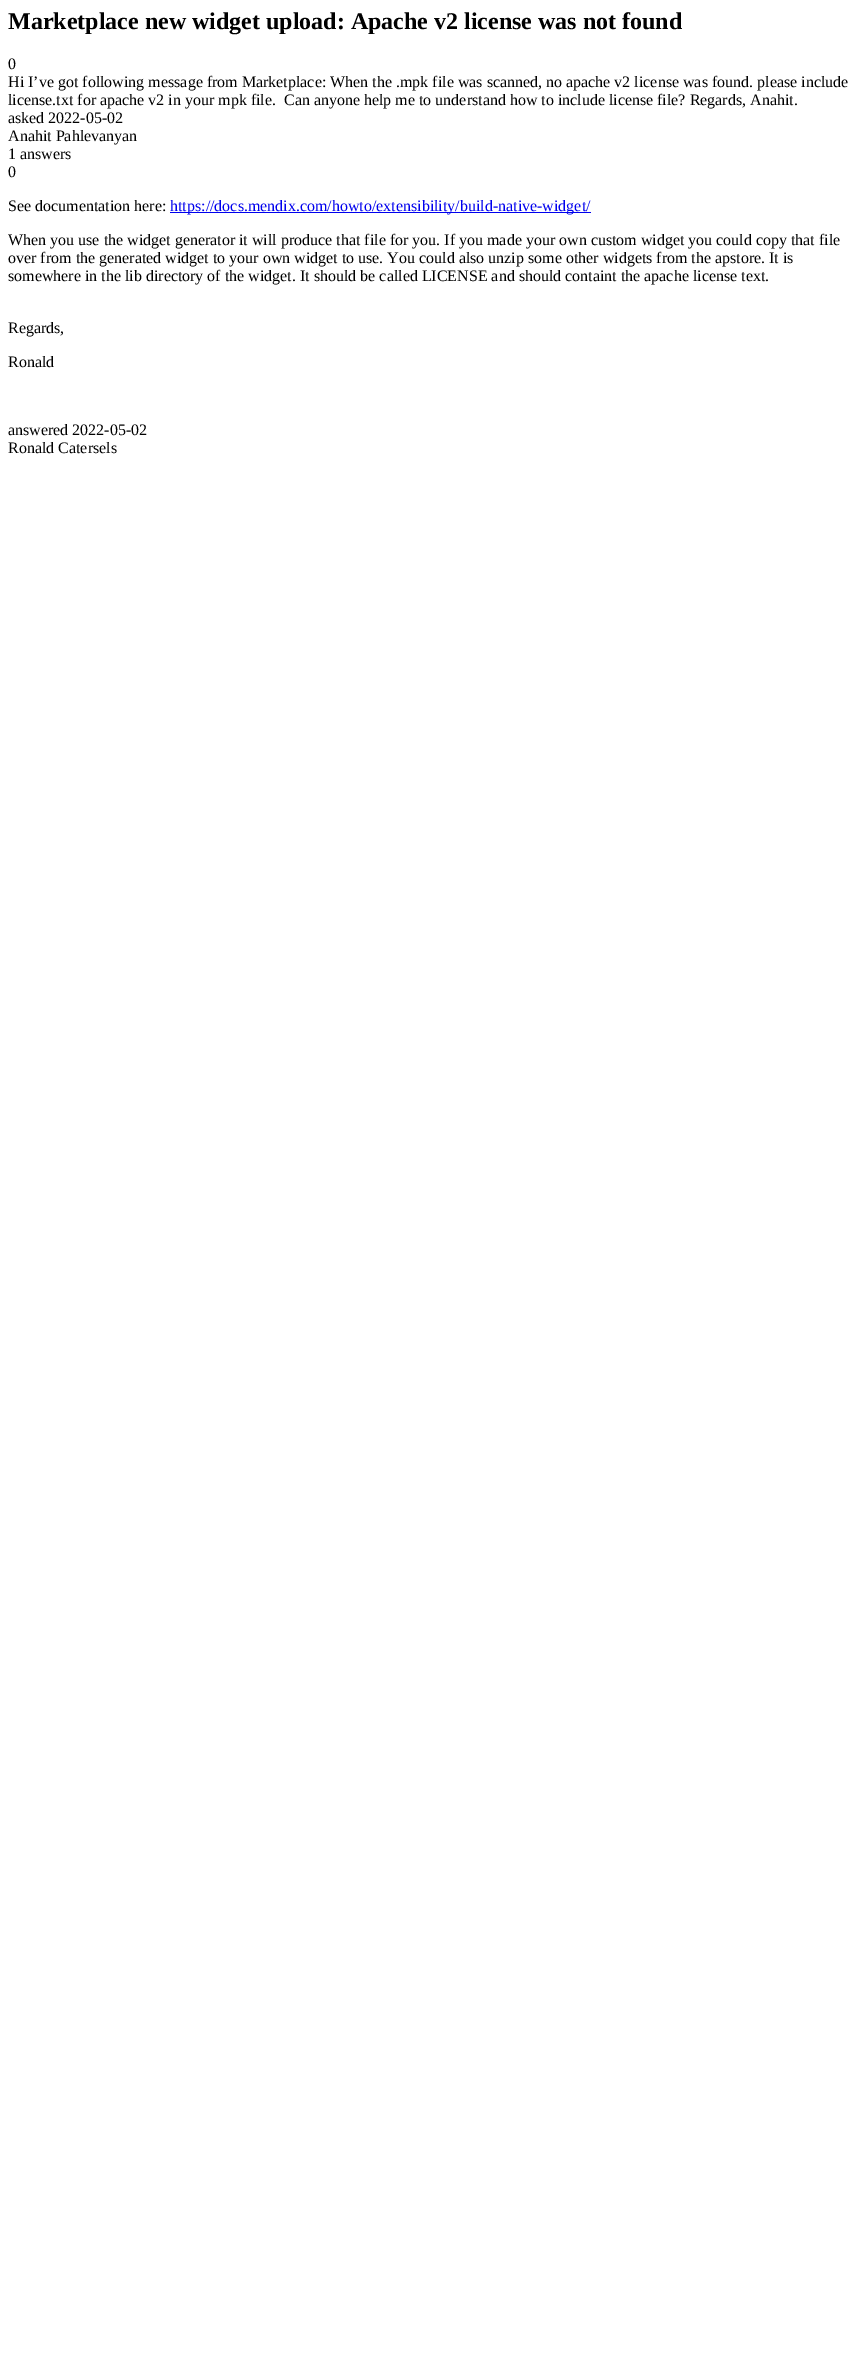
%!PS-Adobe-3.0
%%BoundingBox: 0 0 863 2373
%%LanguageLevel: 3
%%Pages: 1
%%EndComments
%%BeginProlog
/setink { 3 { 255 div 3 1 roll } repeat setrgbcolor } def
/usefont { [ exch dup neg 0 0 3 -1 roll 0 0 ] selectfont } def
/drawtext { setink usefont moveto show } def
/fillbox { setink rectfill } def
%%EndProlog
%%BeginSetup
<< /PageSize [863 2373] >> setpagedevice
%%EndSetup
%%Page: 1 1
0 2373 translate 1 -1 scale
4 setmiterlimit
0 0 863 2373 255 255 255 fillbox
(Marketplace new widget upload: Apache v2 license was not found) 8 29 /LiberationSerif-Bold 24 0 0 0 drawtext
(0) 8 69 /LiberationSerif-Regular 16 0 0 0 drawtext
(Hi I’ve got following message from Marketplace: When the .mpk file was scanned, no apache v2 license was found. please include) 8 87 /LiberationSerif-Regular 16 0 0 0 drawtext
(license.txt for apache v2 in your mpk file.  Can anyone help me to understand how to include license file? Regards, Anahit.) 8 105 /LiberationSerif-Regular 16 0 0 0 drawtext
(asked 2022-05-02) 8 123 /LiberationSerif-Regular 16 0 0 0 drawtext
(Anahit Pahlevanyan) 8 141 /LiberationSerif-Regular 16 0 0 0 drawtext
(1 answers) 8 159 /LiberationSerif-Regular 16 0 0 0 drawtext
(0) 8 177 /LiberationSerif-Regular 16 0 0 0 drawtext
(See documentation here:) 8 211 /LiberationSerif-Regular 16 0 0 0 drawtext
170 212 421 1 0 0 238 fillbox
(https://docs.mendix.com/howto/extensibility/build-native-widget/) 170 211 /LiberationSerif-Regular 16 0 0 238 drawtext
(When you use the widget generator it will produce that file for you. If you made your own custom widget you could copy that file) 8 245 /LiberationSerif-Regular 16 0 0 0 drawtext
(over from the generated widget to your own widget to use. You could also unzip some other widgets from the apstore. It is) 8 263 /LiberationSerif-Regular 16 0 0 0 drawtext
(somewhere in the lib directory of the widget. It should be called LICENSE and should containt the apache license text.) 8 281 /LiberationSerif-Regular 16 0 0 0 drawtext
(Regards,) 8 333 /LiberationSerif-Regular 16 0 0 0 drawtext
(Ronald) 8 367 /LiberationSerif-Regular 16 0 0 0 drawtext
(answered 2022-05-02) 8 435 /LiberationSerif-Regular 16 0 0 0 drawtext
(Ronald Catersels) 8 453 /LiberationSerif-Regular 16 0 0 0 drawtext
showpage
%%EOF
